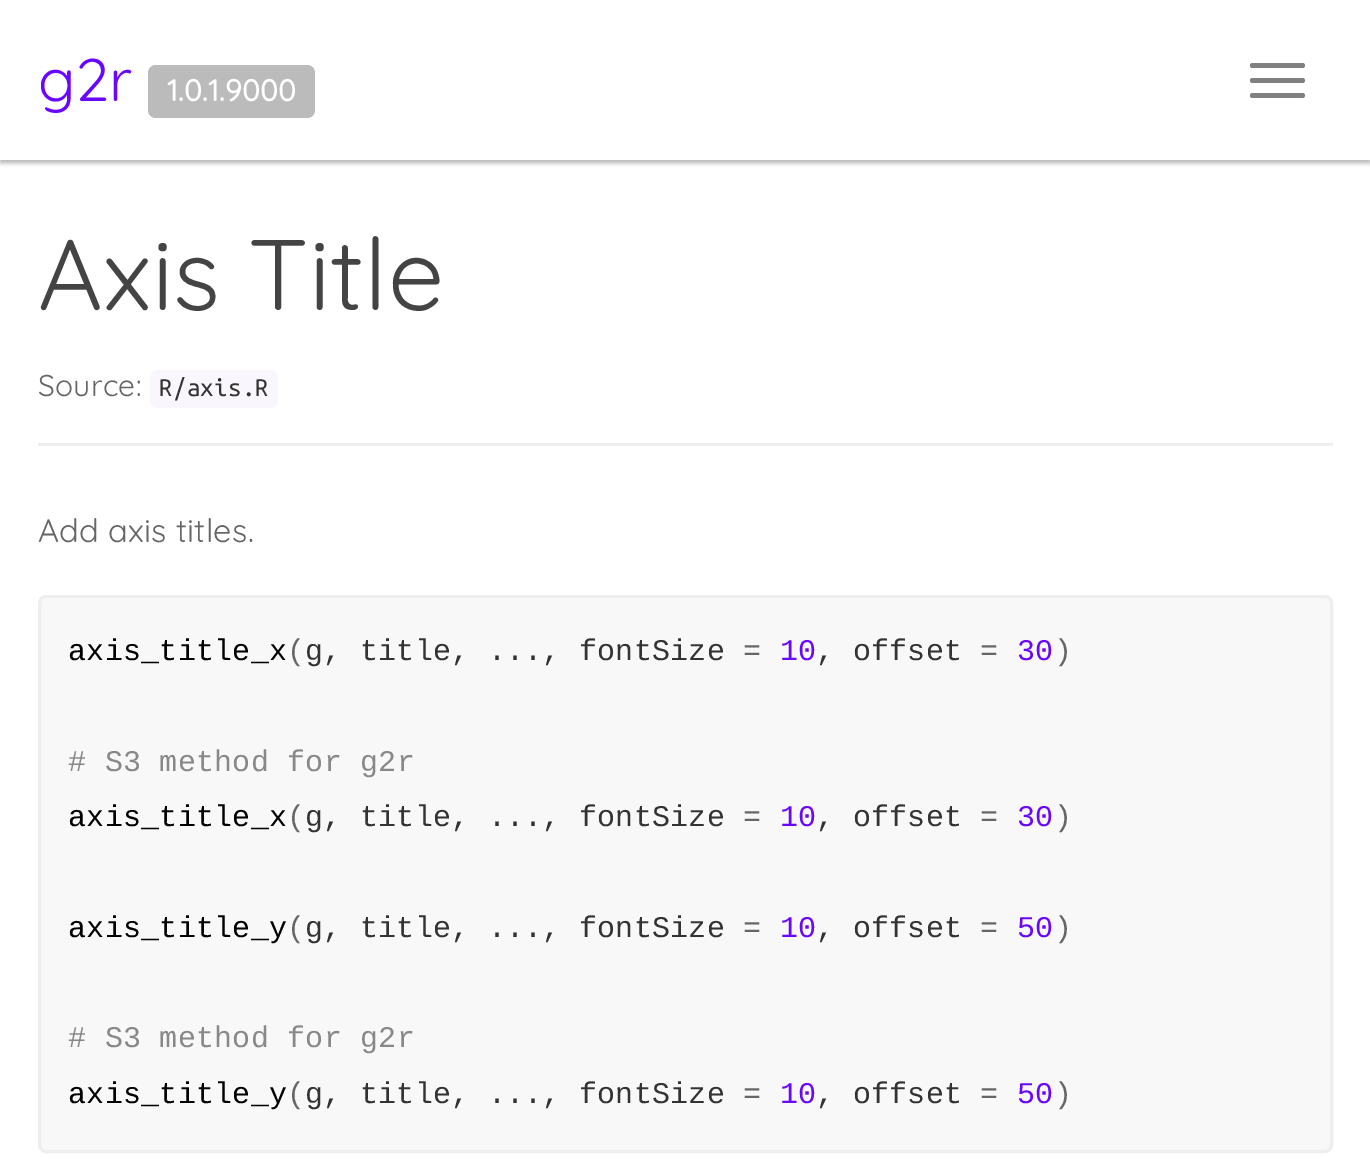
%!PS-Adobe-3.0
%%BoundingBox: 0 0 1370 1171
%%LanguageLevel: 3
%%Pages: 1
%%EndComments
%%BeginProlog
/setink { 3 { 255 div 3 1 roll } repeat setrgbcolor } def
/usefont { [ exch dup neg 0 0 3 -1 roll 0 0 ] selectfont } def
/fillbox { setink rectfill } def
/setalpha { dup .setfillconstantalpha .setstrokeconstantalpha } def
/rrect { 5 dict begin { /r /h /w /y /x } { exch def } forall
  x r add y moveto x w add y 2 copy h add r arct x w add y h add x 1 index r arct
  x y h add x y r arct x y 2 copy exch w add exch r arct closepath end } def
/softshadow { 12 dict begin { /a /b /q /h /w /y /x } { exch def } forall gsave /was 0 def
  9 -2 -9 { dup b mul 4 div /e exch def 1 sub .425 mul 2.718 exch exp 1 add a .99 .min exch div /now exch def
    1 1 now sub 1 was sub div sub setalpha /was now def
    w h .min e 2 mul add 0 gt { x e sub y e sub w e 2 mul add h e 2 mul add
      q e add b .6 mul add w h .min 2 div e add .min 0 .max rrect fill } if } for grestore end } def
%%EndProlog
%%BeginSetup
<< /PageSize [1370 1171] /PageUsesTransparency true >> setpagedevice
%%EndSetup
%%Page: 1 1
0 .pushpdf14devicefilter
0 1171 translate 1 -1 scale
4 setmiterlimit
0 0 1370 1171 255 255 255 fillbox
gsave
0 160 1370 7 rectclip
0 0 0 setink
0 3 1370 160 0 2.5 0.3 softshadow
grestore
/Quicksand-Light 60 usefont
105 6 255 setink
38 101 moveto 0.25 0 (g2r) ashow
187 187 187 setink
148 65 167 53 8 rrect fill
/Quicksand-Bold 30 usefont
255 255 255 setink
167 101 moveto 0.25 0 (1.0.1.9000) ashow
128 128 128 setink
1250 63 55 5 2.5 rrect fill
1250 78 55 5 2.5 rrect fill
1250 93 55 5 2.5 rrect fill
38 443 1295 3 238 238 238 fillbox
/Quicksand-Light 100 usefont
68 68 68 setink
38 310 moveto 0.25 0 (Axis Title) ashow
/Quicksand-Light 30 usefont
102 102 102 setink
38 396 moveto 0.25 0 (Source:) ashow
249 246 253 setink
150 370 128 38 8 rrect fill
/UbuntuMono-Regular 27 usefont
51 51 51 setink
159 396 moveto 0.25 0 (R/axis.R) ashow
/Quicksand-Light 32.5 usefont
102 102 102 setink
38 542 moveto 0.25 0 (Add axis titles.) ashow
248 248 248 setink
39.5 596.5 1292 555 6.5 rrect gsave fill grestore
238 238 238 setink
3 setlinewidth
stroke
/LiberationMono-Regular 30 usefont
0 0 0 setink
68 660 moveto 0.25 0 (axis_title_x) ashow
102 102 102 setink
287 660 moveto 0.25 0 (\() ashow
51 51 51 setink
305 660 moveto 0.25 0 (g, title, ..., fontSize) ashow
102 102 102 setink
743 660 moveto 0.25 0 (=) ashow
105 6 255 setink
780 660 moveto 0.25 0 (10) ashow
51 51 51 setink
816 660 moveto 0.25 0 (, offset) ashow
102 102 102 setink
980 660 moveto 0.25 0 (=) ashow
105 6 255 setink
1017 660 moveto 0.25 0 (30) ashow
102 102 102 setink
1054 660 moveto 0.25 0 (\)) ashow
136 136 136 setink
68 771 moveto 0.25 0 (# S3 method for g2r) ashow
0 0 0 setink
68 826 moveto 0.25 0 (axis_title_x) ashow
102 102 102 setink
287 826 moveto 0.25 0 (\() ashow
51 51 51 setink
305 826 moveto 0.25 0 (g, title, ..., fontSize) ashow
102 102 102 setink
743 826 moveto 0.25 0 (=) ashow
105 6 255 setink
780 826 moveto 0.25 0 (10) ashow
51 51 51 setink
816 826 moveto 0.25 0 (, offset) ashow
102 102 102 setink
980 826 moveto 0.25 0 (=) ashow
105 6 255 setink
1017 826 moveto 0.25 0 (30) ashow
102 102 102 setink
1054 826 moveto 0.25 0 (\)) ashow
0 0 0 setink
68 937 moveto 0.25 0 (axis_title_y) ashow
102 102 102 setink
287 937 moveto 0.25 0 (\() ashow
51 51 51 setink
305 937 moveto 0.25 0 (g, title, ..., fontSize) ashow
102 102 102 setink
743 937 moveto 0.25 0 (=) ashow
105 6 255 setink
780 937 moveto 0.25 0 (10) ashow
51 51 51 setink
816 937 moveto 0.25 0 (, offset) ashow
102 102 102 setink
980 937 moveto 0.25 0 (=) ashow
105 6 255 setink
1017 937 moveto 0.25 0 (50) ashow
102 102 102 setink
1054 937 moveto 0.25 0 (\)) ashow
136 136 136 setink
68 1047 moveto 0.25 0 (# S3 method for g2r) ashow
0 0 0 setink
68 1103 moveto 0.25 0 (axis_title_y) ashow
102 102 102 setink
287 1103 moveto 0.25 0 (\() ashow
51 51 51 setink
305 1103 moveto 0.25 0 (g, title, ..., fontSize) ashow
102 102 102 setink
743 1103 moveto 0.25 0 (=) ashow
105 6 255 setink
780 1103 moveto 0.25 0 (10) ashow
51 51 51 setink
816 1103 moveto 0.25 0 (, offset) ashow
102 102 102 setink
980 1103 moveto 0.25 0 (=) ashow
105 6 255 setink
1017 1103 moveto 0.25 0 (50) ashow
102 102 102 setink
1054 1103 moveto 0.25 0 (\)) ashow
.poppdf14devicefilter showpage
%%EOF
